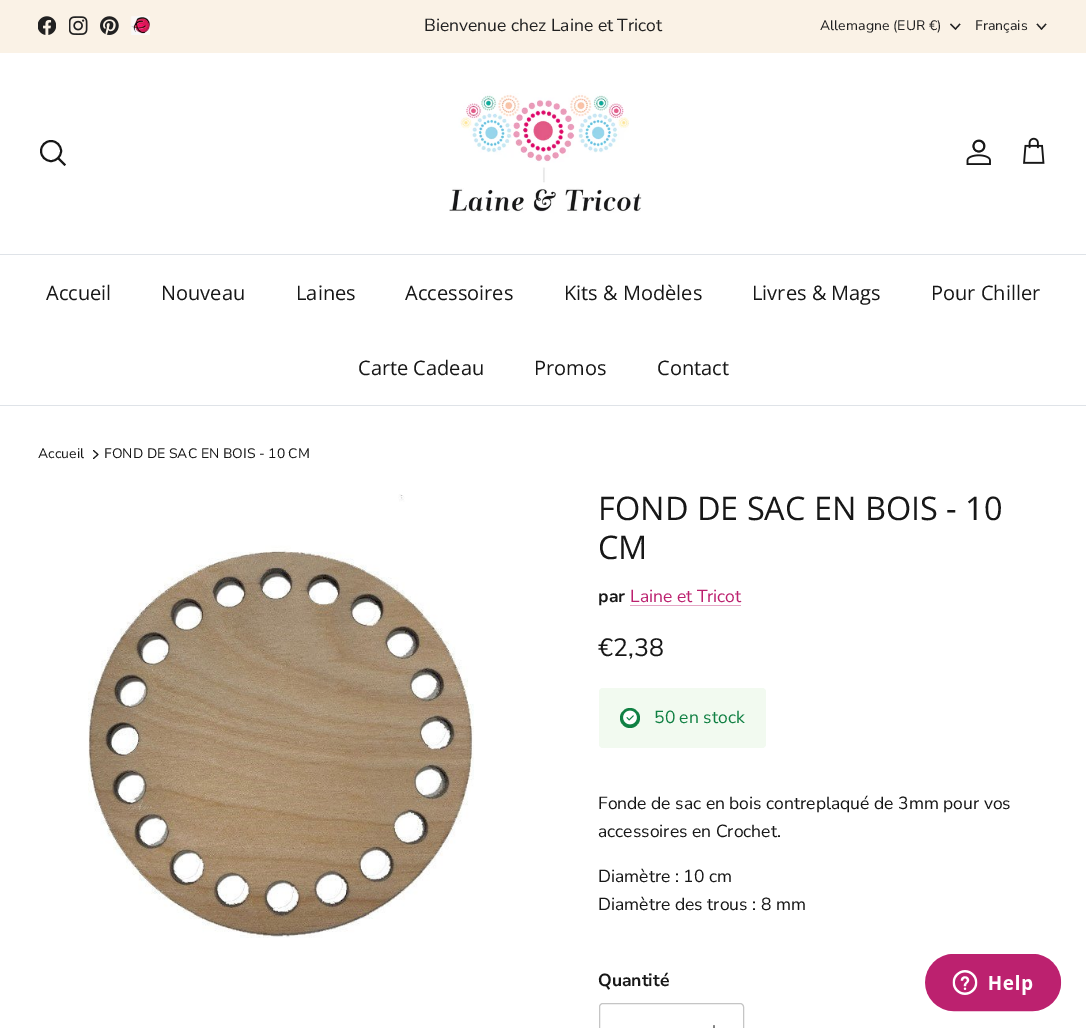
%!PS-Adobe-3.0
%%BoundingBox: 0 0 1086 1028
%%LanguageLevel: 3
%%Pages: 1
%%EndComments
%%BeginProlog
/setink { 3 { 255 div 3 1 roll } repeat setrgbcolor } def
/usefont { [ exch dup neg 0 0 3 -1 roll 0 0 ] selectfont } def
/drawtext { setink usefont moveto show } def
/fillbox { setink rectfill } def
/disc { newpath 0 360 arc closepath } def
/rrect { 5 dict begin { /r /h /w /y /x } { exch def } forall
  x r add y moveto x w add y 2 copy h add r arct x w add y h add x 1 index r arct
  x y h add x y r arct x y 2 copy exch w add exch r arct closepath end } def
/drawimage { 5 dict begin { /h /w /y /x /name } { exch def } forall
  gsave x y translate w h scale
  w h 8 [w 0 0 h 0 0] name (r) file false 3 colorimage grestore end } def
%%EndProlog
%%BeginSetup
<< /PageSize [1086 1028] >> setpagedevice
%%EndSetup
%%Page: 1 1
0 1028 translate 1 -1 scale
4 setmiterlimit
0 0 1086 1028 255 255 255 fillbox
0 0 1086 53 250 242 230 fillbox
(assets/img1.rgb) 38 16 18 19 drawimage
(assets/img2.rgb) 69 16 19 19 drawimage
(assets/img3.rgb) 100 16 19 19 drawimage
(assets/img4.rgb) 131 16 19 19 drawimage
(Bienvenue chez Laine et Tricot) 424 31 /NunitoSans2-Regular 17.5 33 33 33 drawtext
(Allemagne \(EUR €\)) 820 30 /NunitoSans-Regular 13.75 33 33 33 drawtext
1.2 setlinewidth
960 24 moveto 955.5 29 lineto 950.5 24 lineto stroke
(Français) 975 30 /NunitoSans-Regular 13.75 33 33 33 drawtext
1046 24 moveto 1041.5 29 lineto 1037 24 lineto stroke
0 254 1086 1 223 227 232 fillbox
23 23 23 setink
1.9 setlinewidth
51 151 10 disc stroke
2 setlinecap
58.5 158.5 moveto 64.5 164.5 lineto stroke
(assets/img5.rgb) 449 93 193 120 drawimage
(assets/img6.rgb) 966 139 25 26 drawimage
(assets/img7.rgb) 1023 137 22 27 drawimage
0 405 1086 1 223 227 232 fillbox
(Accueil) 46 300 /OpenSans-Regular 20 23 23 23 drawtext
(Nouveau) 161 300 /OpenSans-Regular 20 23 23 23 drawtext
(Laines) 296 300 /OpenSans-Regular 20 23 23 23 drawtext
(Accessoires) 405 300 /OpenSans-Regular 20 23 23 23 drawtext
(Kits & Modèles) 564 300 /OpenSans-Regular 20 23 23 23 drawtext
(Livres & Mags) 752 300 /OpenSans-Regular 20 23 23 23 drawtext
(Pour Chiller) 931 300 /OpenSans-Regular 20 23 23 23 drawtext
(Carte Cadeau) 358 375 /OpenSans-Regular 20 23 23 23 drawtext
(Promos) 534 375 /OpenSans-Regular 20 23 23 23 drawtext
(Contact) 657 375 /OpenSans-Regular 20 23 23 23 drawtext
(Accueil) 38 458 /NunitoSans-Regular 13.75 23 23 23 drawtext
1 setlinewidth
1 setlinecap
1 setlinejoin
93.5 458.5 moveto 98 454.5 lineto 93.5 450.5 lineto stroke
(FOND DE SAC EN BOIS - 10 CM) 104 458 /NunitoSans-Regular 13.75 23 23 23 drawtext
(assets/img8.rgb) 88 494 386 444 drawimage
(FOND DE SAC EN BOIS - 10) 598 520 /OpenSans-Regular 32.5 23 23 23 drawtext
(CM) 598 559 /OpenSans-Regular 32.5 23 23 23 drawtext
(par) 598 602 /NunitoSans-Bold 17.5 23 23 23 drawtext
(Laine et Tricot) 630 602 /NunitoSans2-Regular 17.5 188 33 111 drawtext
630 605 111 1 228 166 197 fillbox
(€2,38) 598 656 /NunitoSans2-Regular 25 23 23 23 drawtext
242 250 240 setink
599 688 167 60 4 rrect fill
16 128 67 setink
630 718 10 disc fill
(assets/img9.rgb) 622 710 16 15 drawimage
(50 en stock) 654 723 /NunitoSans2-Regular 17.5 16 128 67 drawtext
(Fonde de sac en bois contreplaqué de 3mm pour vos) 598 809 /NunitoSans2-Regular 17.5 23 23 23 drawtext
(accessoires en Crochet.) 598 837 /NunitoSans2-Regular 17.5 23 23 23 drawtext
(Diamètre : 10 cm) 598 882 /NunitoSans2-Regular 17.5 23 23 23 drawtext
(Diamètre des trous : 8 mm) 598 910 /NunitoSans2-Regular 17.5 23 23 23 drawtext
(Quantité) 598 986 /NunitoSans-Bold 17.5 23 23 23 drawtext
197 197 197 setink
0 setlinecap
0 setlinejoin
599.5 1003.5 144 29 3.5 rrect stroke
23 23 23 setink
0.8 setlinewidth
1 setlinecap
1 setlinejoin
714 1025.5 moveto 714 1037 lineto 708 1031 moveto 719.5 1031 lineto stroke
(assets/img10.rgb) 925 954 137 58 drawimage
showpage
%%EOF
